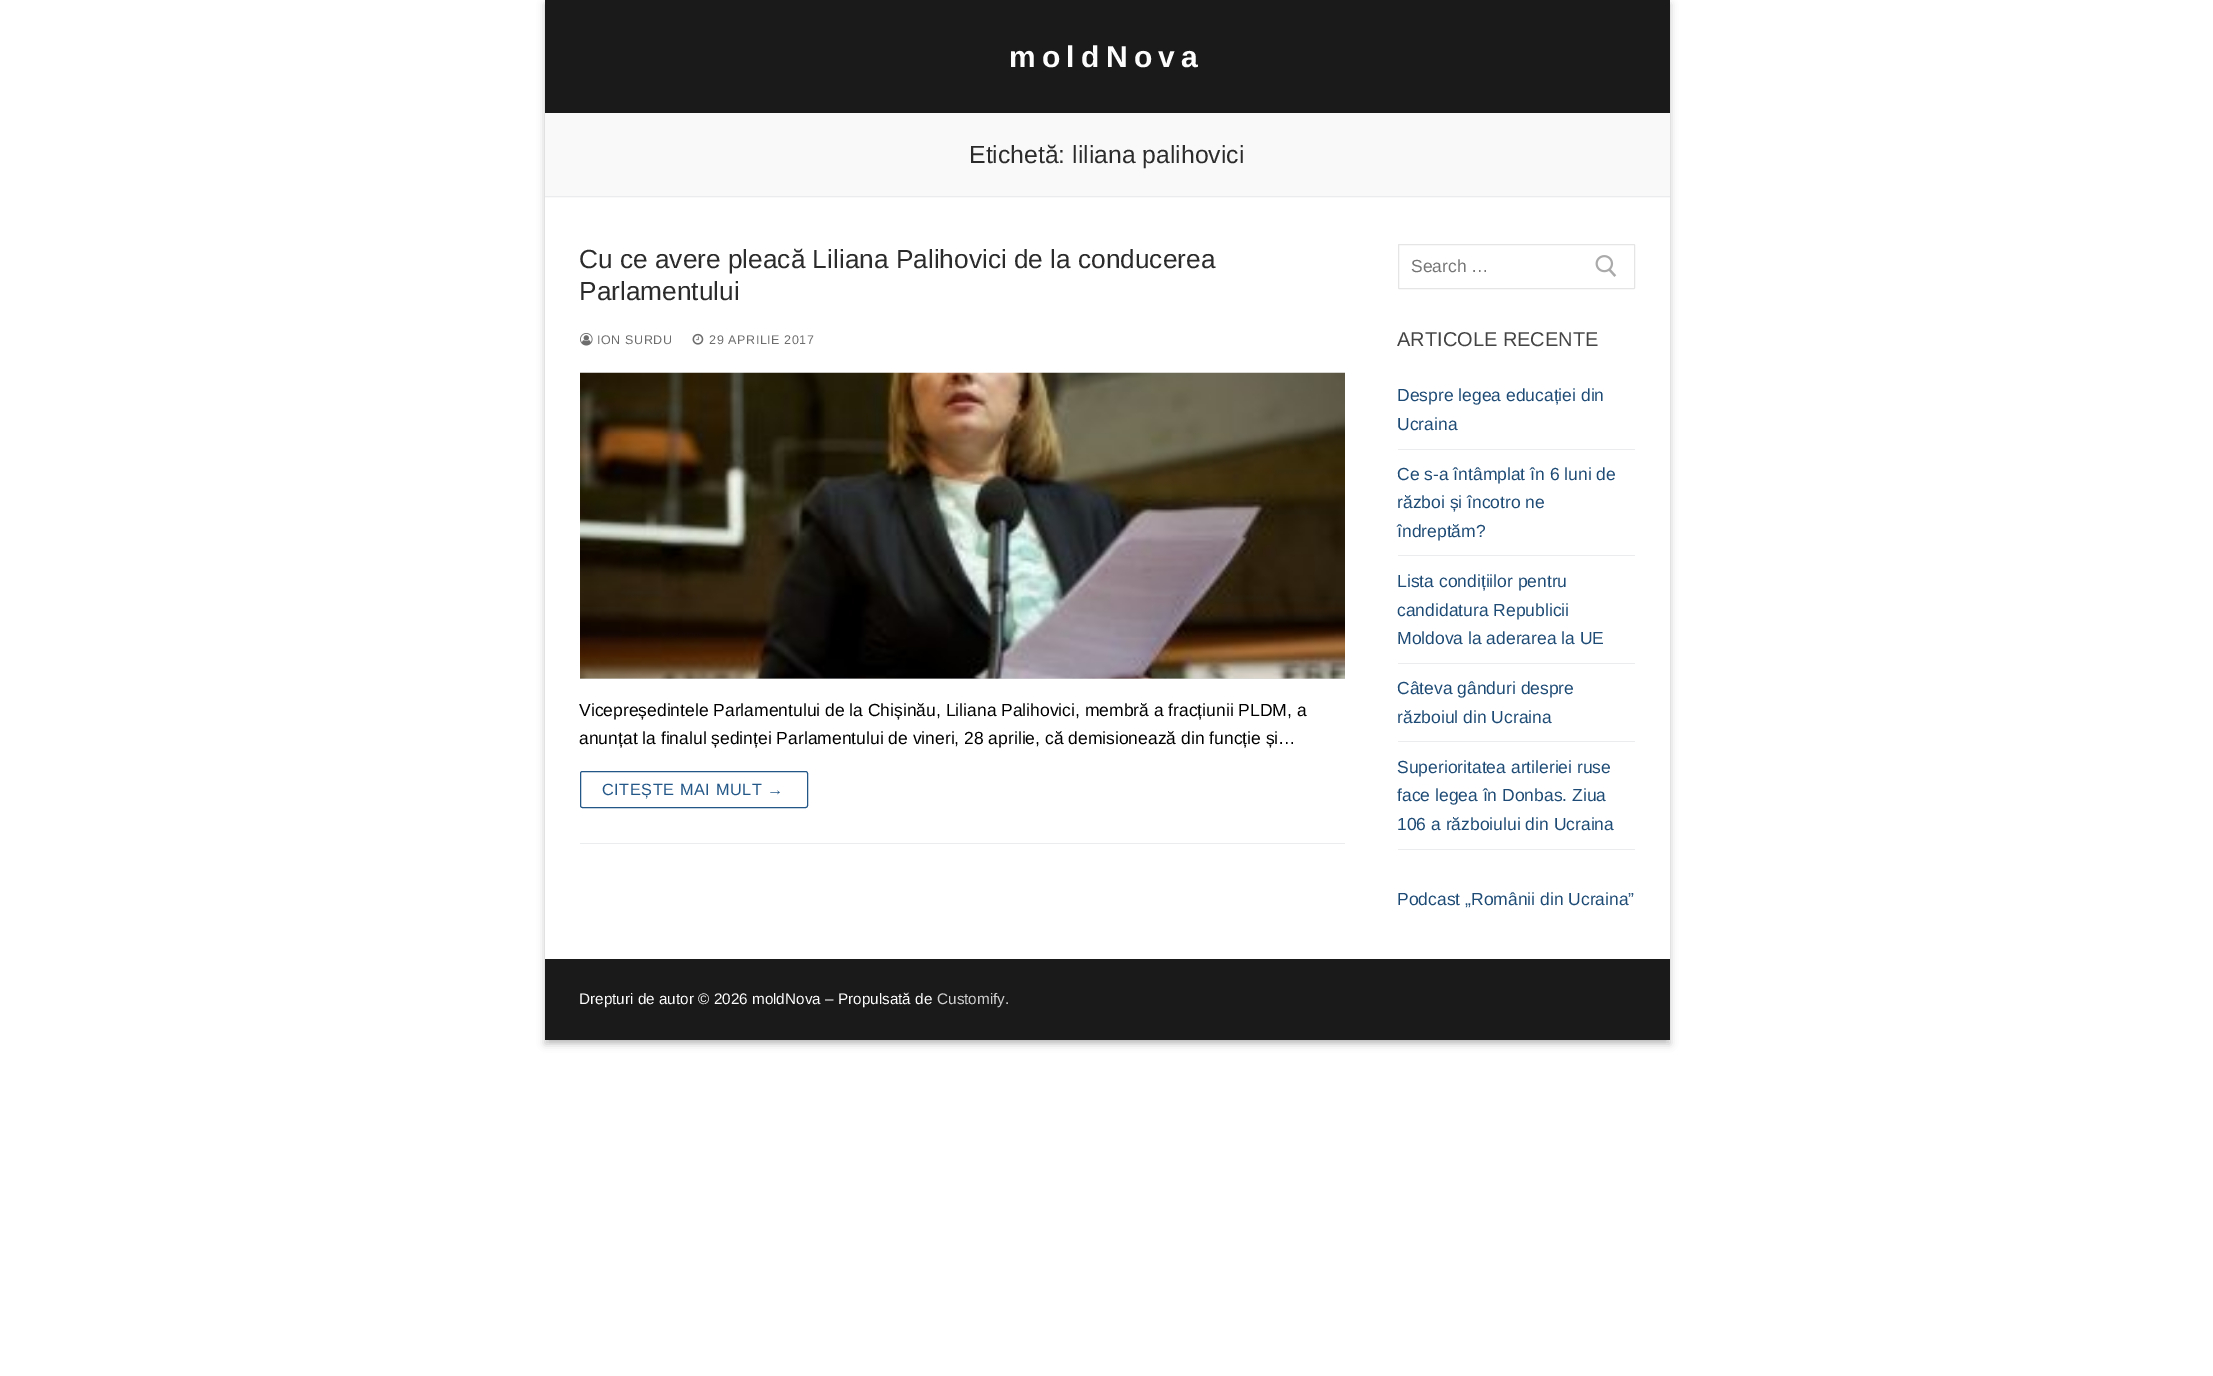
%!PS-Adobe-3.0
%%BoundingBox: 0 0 2213 1376
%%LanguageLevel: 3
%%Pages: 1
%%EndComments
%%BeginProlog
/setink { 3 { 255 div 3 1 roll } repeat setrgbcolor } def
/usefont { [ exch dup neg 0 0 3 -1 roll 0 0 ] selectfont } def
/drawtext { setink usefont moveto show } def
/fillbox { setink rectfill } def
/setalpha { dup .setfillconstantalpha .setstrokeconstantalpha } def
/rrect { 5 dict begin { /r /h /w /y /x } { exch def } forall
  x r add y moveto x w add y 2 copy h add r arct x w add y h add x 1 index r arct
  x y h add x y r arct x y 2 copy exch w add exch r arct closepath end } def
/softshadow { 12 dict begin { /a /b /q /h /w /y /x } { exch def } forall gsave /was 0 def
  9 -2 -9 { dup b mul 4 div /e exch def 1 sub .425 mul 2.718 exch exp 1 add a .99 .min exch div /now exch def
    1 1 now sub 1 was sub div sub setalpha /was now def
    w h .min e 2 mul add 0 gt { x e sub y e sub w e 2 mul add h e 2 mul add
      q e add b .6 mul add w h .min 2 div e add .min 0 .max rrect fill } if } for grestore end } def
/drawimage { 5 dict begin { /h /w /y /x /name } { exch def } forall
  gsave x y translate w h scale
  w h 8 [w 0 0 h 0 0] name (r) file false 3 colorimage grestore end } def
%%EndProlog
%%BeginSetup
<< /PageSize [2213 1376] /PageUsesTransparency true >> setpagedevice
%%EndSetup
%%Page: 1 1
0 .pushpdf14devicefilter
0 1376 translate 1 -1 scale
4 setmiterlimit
0 0 2213 1376 255 255 255 fillbox
gsave
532 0 moveto 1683 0 lineto 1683 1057 lineto 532 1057 lineto closepath 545 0 moveto 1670 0 lineto 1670 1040 lineto 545 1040 lineto closepath eoclip newpath
0 0 0 setink
545 4 1125 1040 0 4 0.23 softshadow
grestore
gsave
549 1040 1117 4 rectclip
0 0 0 setink
550 9 1115 1030 0 4 0.16 softshadow
grestore
545 0 1125 113 26 26 26 fillbox
/LiberationSans-Bold 30 usefont
253 253 253 setink
1009 67 moveto 6.25 0 (moldNova) ashow
545 113 1125 85 249 249 249 fillbox
545 196 1125 1 234 236 238 fillbox
(Etichetă: liliana palihovici) 969 163 /LiberationSans-Regular 24.75 43 43 43 drawtext
580 843 765 1 234 236 238 fillbox
(Cu ce avere pleacă Liliana Palihovici de la conducerea) 579 268 /LiberationSans-Regular 26.25 43 43 43 drawtext
(Parlamentului) 579 300 /LiberationSans-Regular 26.25 43 43 43 drawtext
(assets/img1.rgb) 580 333 13 13 drawimage
/LiberationSans-Regular 12.5 usefont
109 109 109 setink
597 344 moveto 0.6 0 (ION SURDU) ashow
(assets/img2.rgb) 692 333 12 12 drawimage
709 344 moveto 0.6 0 (29 APRILIE 2017) ashow
580 678 765 1 213 213 213 fillbox
(assets/img3.rgb) 580 372 765 307 drawimage
(Vicepreședintele Parlamentului de la Chișinău, Liliana Palihovici, membră a fracțiunii PLDM, a) 579 716 /LiberationSans-Regular 17.5 0 0 0 drawtext
(anunțat la finalul ședinței Parlamentului de vineri, 28 aprilie, că demisionează din funcție și…) 579 744 /LiberationSans-Regular 17.5 0 0 0 drawtext
35 87 135 setink
580.5 771.5 227 36 2 rrect stroke
/LiberationSans-Regular 16.25 usefont
602 795 moveto 0.6 0 (CITEȘTE MAI MULT →) ashow
229 229 229 setink
1398.5 244.5 236 44 0.5 rrect stroke
(Search …) 1411 272 /LiberationSans-Regular 17.5 117 117 117 drawtext
(assets/img4.rgb) 1595 255 22 22 drawimage
(ARTICOLE RECENTE) 1397 346 /LiberationSans-Regular 20 68 68 68 drawtext
1398 449 237 1 234 236 238 fillbox
(Despre legea educației din) 1397 401 /LiberationSans-Regular 17.5 30 75 117 drawtext
(Ucraina) 1397 430 /LiberationSans-Regular 17.5 30 75 117 drawtext
1398 555 237 1 234 236 238 fillbox
(Ce s-a întâmplat în 6 luni de) 1397 480 /LiberationSans-Regular 17.5 30 75 117 drawtext
(război și încotro ne) 1397 508 /LiberationSans-Regular 17.5 30 75 117 drawtext
(îndreptăm?) 1397 537 /LiberationSans-Regular 17.5 30 75 117 drawtext
1398 663 237 1 234 236 238 fillbox
(Lista condițiilor pentru) 1397 587 /LiberationSans-Regular 17.5 30 75 117 drawtext
(candidatura Republicii) 1397 616 /LiberationSans-Regular 17.5 30 75 117 drawtext
(Moldova la aderarea la UE) 1397 644 /LiberationSans-Regular 17.5 30 75 117 drawtext
1398 741 237 1 234 236 238 fillbox
(Câteva gânduri despre) 1397 694 /LiberationSans-Regular 17.5 30 75 117 drawtext
(războiul din Ucraina) 1397 723 /LiberationSans-Regular 17.5 30 75 117 drawtext
1398 849 237 1 234 236 238 fillbox
(Superioritatea artileriei ruse) 1397 773 /LiberationSans-Regular 17.5 30 75 117 drawtext
(face legea în Donbas. Ziua) 1397 801 /LiberationSans-Regular 17.5 30 75 117 drawtext
(106 a războiului din Ucraina) 1397 830 /LiberationSans-Regular 17.5 30 75 117 drawtext
(Podcast „Românii din Ucraina”) 1397 905 /LiberationSans-Regular 17.5 30 75 117 drawtext
545 959 1125 81 26 26 26 fillbox
(Drepturi de autor © 2026 moldNova – Propulsată de) 579 1004 /LiberationSans-Regular 15.3 253 253 253 drawtext
(Customify) 937 1004 /LiberationSans-Regular 15.3 207 207 207 drawtext
(.) 1005 1004 /LiberationSans-Regular 15.3 253 253 253 drawtext
.poppdf14devicefilter showpage
%%EOF
